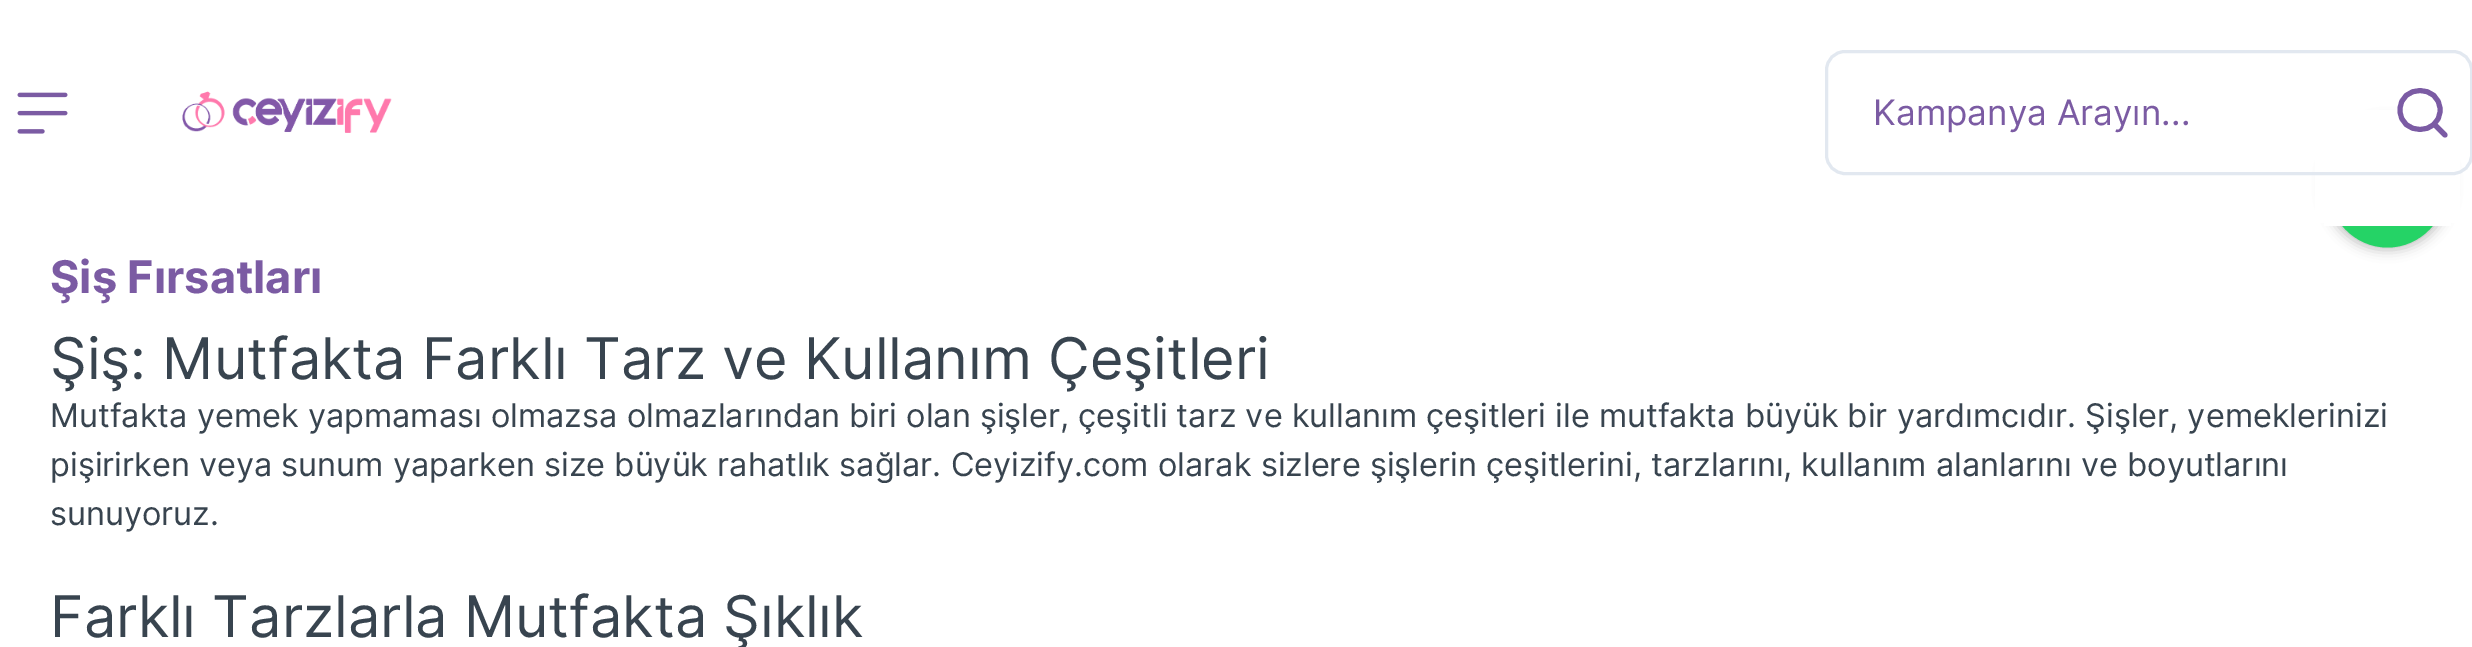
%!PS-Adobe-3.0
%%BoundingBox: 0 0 2472 647
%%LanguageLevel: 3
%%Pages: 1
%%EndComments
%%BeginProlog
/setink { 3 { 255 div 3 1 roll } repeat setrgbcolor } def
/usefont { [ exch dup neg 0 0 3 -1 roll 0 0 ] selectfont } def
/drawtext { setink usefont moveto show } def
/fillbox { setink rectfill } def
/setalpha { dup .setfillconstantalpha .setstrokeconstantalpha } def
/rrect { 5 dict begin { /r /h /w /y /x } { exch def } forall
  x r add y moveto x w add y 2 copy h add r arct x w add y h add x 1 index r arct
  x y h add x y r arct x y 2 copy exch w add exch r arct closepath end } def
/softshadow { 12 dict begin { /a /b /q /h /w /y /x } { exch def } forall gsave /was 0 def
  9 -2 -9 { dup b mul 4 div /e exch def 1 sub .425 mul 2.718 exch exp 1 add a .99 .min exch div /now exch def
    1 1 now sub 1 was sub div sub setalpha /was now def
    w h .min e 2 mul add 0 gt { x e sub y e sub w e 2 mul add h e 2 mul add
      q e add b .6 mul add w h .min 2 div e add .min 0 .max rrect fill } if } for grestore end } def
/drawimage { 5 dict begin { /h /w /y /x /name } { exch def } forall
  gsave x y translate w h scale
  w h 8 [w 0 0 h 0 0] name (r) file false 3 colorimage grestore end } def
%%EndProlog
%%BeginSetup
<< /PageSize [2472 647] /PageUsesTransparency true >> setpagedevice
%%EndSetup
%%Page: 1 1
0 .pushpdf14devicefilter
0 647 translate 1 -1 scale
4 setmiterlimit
0 0 2472 647 255 255 255 fillbox
189 189 189 setink
2325 120 125 130 62.5 6 1 softshadow
37 211 102 setink
2387.5 122.5 moveto 2420.5 122.5 2447.5 150.5 2447.5 185 curveto 2447.5 219.5 2420.5 247.5 2387.5 247.5 curveto 2354.5 247.5 2327.5 219.5 2327.5 185 curveto 2327.5 150.5 2354.5 122.5 2387.5 122.5 curveto closepath fill
2315 110 145 113 255 255 255 fillbox
2324 223 127 3 255 255 255 fillbox
(assets/img1.rgb) 17 92 51 42 drawimage
(assets/img2.rgb) 182 91 210 42 drawimage
226 232 240 setink
3 setlinewidth
1826.5 51.5 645 122 18.5 rrect stroke
(Kampanya Arayın...) 1873 125 /Inter-Regular 35 123 91 163 drawtext
123 91 164 setink
5 setlinewidth
1 setlinecap
1 setlinejoin
2445 135 moveto 2434 124 lineto 2440 110 moveto 2440 136 2400 136 2400 110 curveto 2400 84 2440 84 2440 110 curveto closepath stroke
(Şiş Fırsatları) 50 293 /Inter-Bold 45 123 91 163 drawtext
(Şiş: Mutfakta Farklı Tarz ve Kullanım Çeşitleri) 50 379 /Inter-Regular 57.5 56 68 79 drawtext
(Mutfakta yemek yapmaması olmazsa olmazlarından biri olan şişler, çeşitli tarz ve kullanım çeşitleri ile mutfakta büyük bir yardımcıdır. Şişler, yemeklerinizi) 50 427 /Inter-Regular 32.5 56 68 79 drawtext
(pişirirken veya sunum yaparken size büyük rahatlık sağlar. Ceyizify.com olarak sizlere şişlerin çeşitlerini, tarzlarını, kullanım alanlarını ve boyutlarını) 50 476 /Inter-Regular 32.5 56 68 79 drawtext
(sunuyoruz.) 50 525 /Inter-Regular 32.5 56 68 79 drawtext
(Farklı Tarzlarla Mutfakta Şıklık) 50 637 /Inter-Regular 57.5 56 68 79 drawtext
.poppdf14devicefilter showpage
%%EOF
